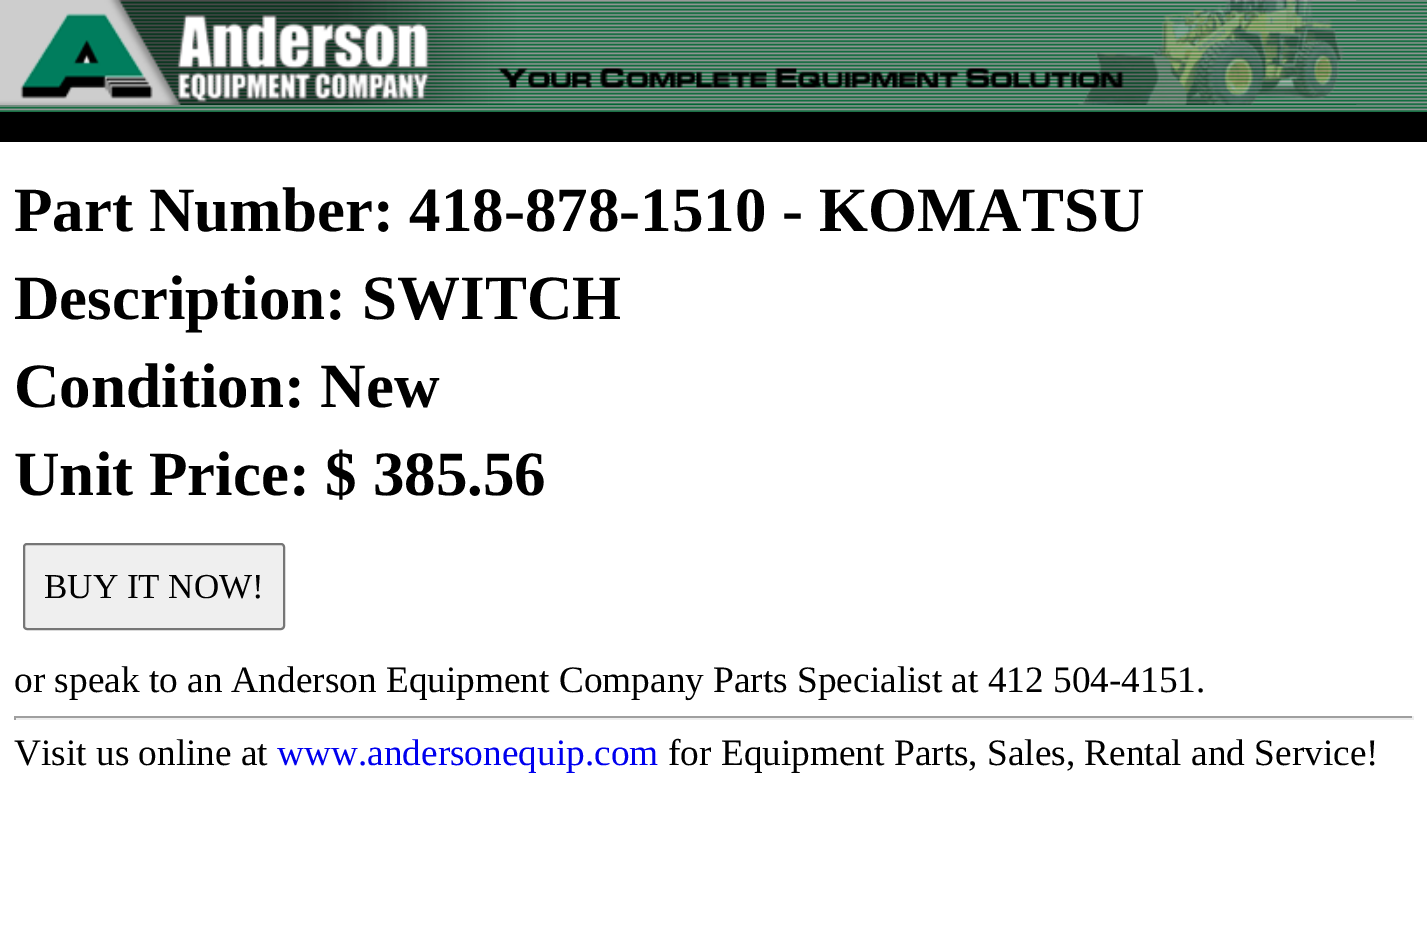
%!PS-Adobe-3.0
%%BoundingBox: 0 0 1427 934
%%LanguageLevel: 3
%%Pages: 1
%%EndComments
%%BeginProlog
/setink { 3 { 255 div 3 1 roll } repeat setrgbcolor } def
/usefont { [ exch dup neg 0 0 3 -1 roll 0 0 ] selectfont } def
/drawtext { setink usefont moveto show } def
/fillbox { setink rectfill } def
/rrect { 5 dict begin { /r /h /w /y /x } { exch def } forall
  x r add y moveto x w add y 2 copy h add r arct x w add y h add x 1 index r arct
  x y h add x y r arct x y 2 copy exch w add exch r arct closepath end } def
/drawimage { 5 dict begin { /h /w /y /x /name } { exch def } forall
  gsave x y translate w h scale
  w h 8 [w 0 0 h 0 0] name (r) file false 3 colorimage grestore end } def
%%EndProlog
%%BeginSetup
<< /PageSize [1427 934] >> setpagedevice
%%EndSetup
%%Page: 1 1
0 934 translate 1 -1 scale
4 setmiterlimit
0 0 1427 934 255 255 255 fillbox
(assets/img1.rgb) 0 0 1427 112 drawimage
(assets/img2.rgb) 0 0 489 105 drawimage
(assets/img3.rgb) 488 0 869 105 drawimage
0 112 1427 30 0 0 0 fillbox
(Part Number: 418-878-1510 - KOMATSU) 14 231 /LiberationSerif-Bold 63 0 0 0 drawtext
(Description: SWITCH) 14 319 /LiberationSerif-Bold 63 0 0 0 drawtext
(Condition: New) 14 407 /LiberationSerif-Bold 63 0 0 0 drawtext
(Unit Price: $ 385.56) 14 495 /LiberationSerif-Bold 63 0 0 0 drawtext
239 239 239 setink
24 544 260 85 3 rrect gsave fill grestore
118 118 118 setink
2 setlinewidth
stroke
(BUY IT NOW!) 44 598 /LiberationSerif-Regular 35 0 0 0 drawtext
(or speak to an Anderson Equipment Company Parts Specialist at 412 504-4151.) 14 692 /LiberationSerif-Regular 37.3 0 0 0 drawtext
14 716 1400 2 159 159 159 fillbox
1412 716 2 4 238 238 238 fillbox
14 718 1400 2 238 238 238 fillbox
14 716 2 4 159 159 159 fillbox
(Visit us online at) 14 765 /LiberationSerif-Regular 37.3 0 0 0 drawtext
(www.andersonequip.com) 277 765 /LiberationSerif-Regular 37.3 0 0 238 drawtext
(for Equipment Parts, Sales, Rental and Service!) 668 765 /LiberationSerif-Regular 37.3 0 0 0 drawtext
showpage
%%EOF
